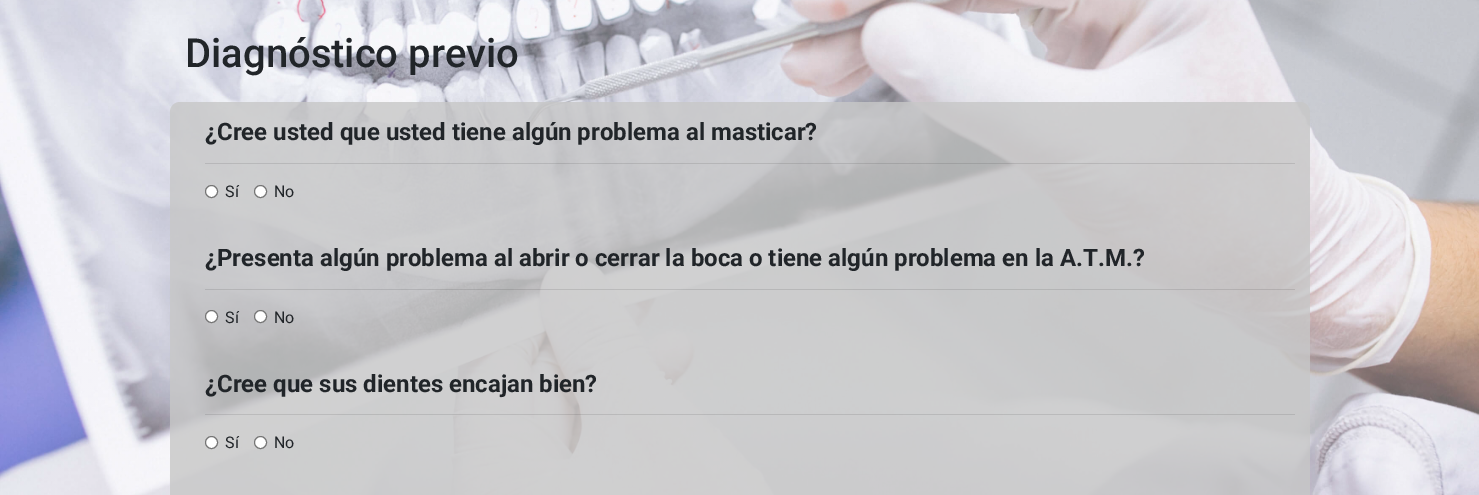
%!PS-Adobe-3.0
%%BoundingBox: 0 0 1479 495
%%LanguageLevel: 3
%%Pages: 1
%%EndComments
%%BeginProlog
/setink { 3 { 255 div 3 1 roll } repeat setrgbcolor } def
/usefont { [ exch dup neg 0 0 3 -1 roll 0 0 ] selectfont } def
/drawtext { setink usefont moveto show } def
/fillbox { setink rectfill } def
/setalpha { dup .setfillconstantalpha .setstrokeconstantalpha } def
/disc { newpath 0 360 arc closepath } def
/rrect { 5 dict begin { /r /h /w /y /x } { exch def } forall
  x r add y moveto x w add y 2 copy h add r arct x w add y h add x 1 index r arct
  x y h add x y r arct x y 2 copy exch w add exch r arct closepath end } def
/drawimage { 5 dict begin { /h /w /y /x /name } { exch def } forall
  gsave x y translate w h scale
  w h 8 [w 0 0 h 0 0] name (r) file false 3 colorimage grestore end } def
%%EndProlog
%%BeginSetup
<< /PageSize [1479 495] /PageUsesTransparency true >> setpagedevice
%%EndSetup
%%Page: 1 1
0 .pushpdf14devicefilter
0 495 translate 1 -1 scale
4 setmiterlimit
0 0 1479 495 255 255 255 fillbox
(assets/img1.rgb) 0 0 1479 495 drawimage
(Diagnóstico previo) 185 67 /Roboto-Medium 40 33 37 41 drawtext
0.81 setalpha
199 199 199 setink
170 102 1140 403 10 rrect fill
1 setalpha
(¿Cree usted que usted tiene algún problema al masticar?) 205 140 /Roboto-Bold 24 33 37 41 drawtext
0.1 setalpha
205 163 1090 1 0 0 0 fillbox
1 setalpha
255 255 255 setink
211.5 191.5 6 disc gsave fill grestore
118 118 118 setink
stroke
(Sí) 225 197 /Roboto-Regular 16 33 37 41 drawtext
255 255 255 setink
260.5 191.5 6 disc gsave fill grestore
118 118 118 setink
stroke
(No) 274 197 /Roboto-Regular 16 33 37 41 drawtext
(¿Presenta algún problema al abrir o cerrar la boca o tiene algún problema en la A.T.M.?) 205 266 /Roboto-Bold 24 33 37 41 drawtext
0.1 setalpha
205 289 1090 1 0 0 0 fillbox
1 setalpha
255 255 255 setink
211.5 316.5 6 disc gsave fill grestore
118 118 118 setink
stroke
(Sí) 225 323 /Roboto-Regular 16 33 37 41 drawtext
255 255 255 setink
260.5 316.5 6 disc gsave fill grestore
118 118 118 setink
stroke
(No) 274 323 /Roboto-Regular 16 33 37 41 drawtext
(¿Cree que sus dientes encajan bien?) 205 392 /Roboto-Bold 24 33 37 41 drawtext
0.1 setalpha
205 414 1090 1 0 0 0 fillbox
1 setalpha
255 255 255 setink
211.5 442.5 6 disc gsave fill grestore
118 118 118 setink
stroke
(Sí) 225 448 /Roboto-Regular 16 33 37 41 drawtext
255 255 255 setink
260.5 442.5 6 disc gsave fill grestore
118 118 118 setink
stroke
(No) 274 448 /Roboto-Regular 16 33 37 41 drawtext
.poppdf14devicefilter showpage
%%EOF
